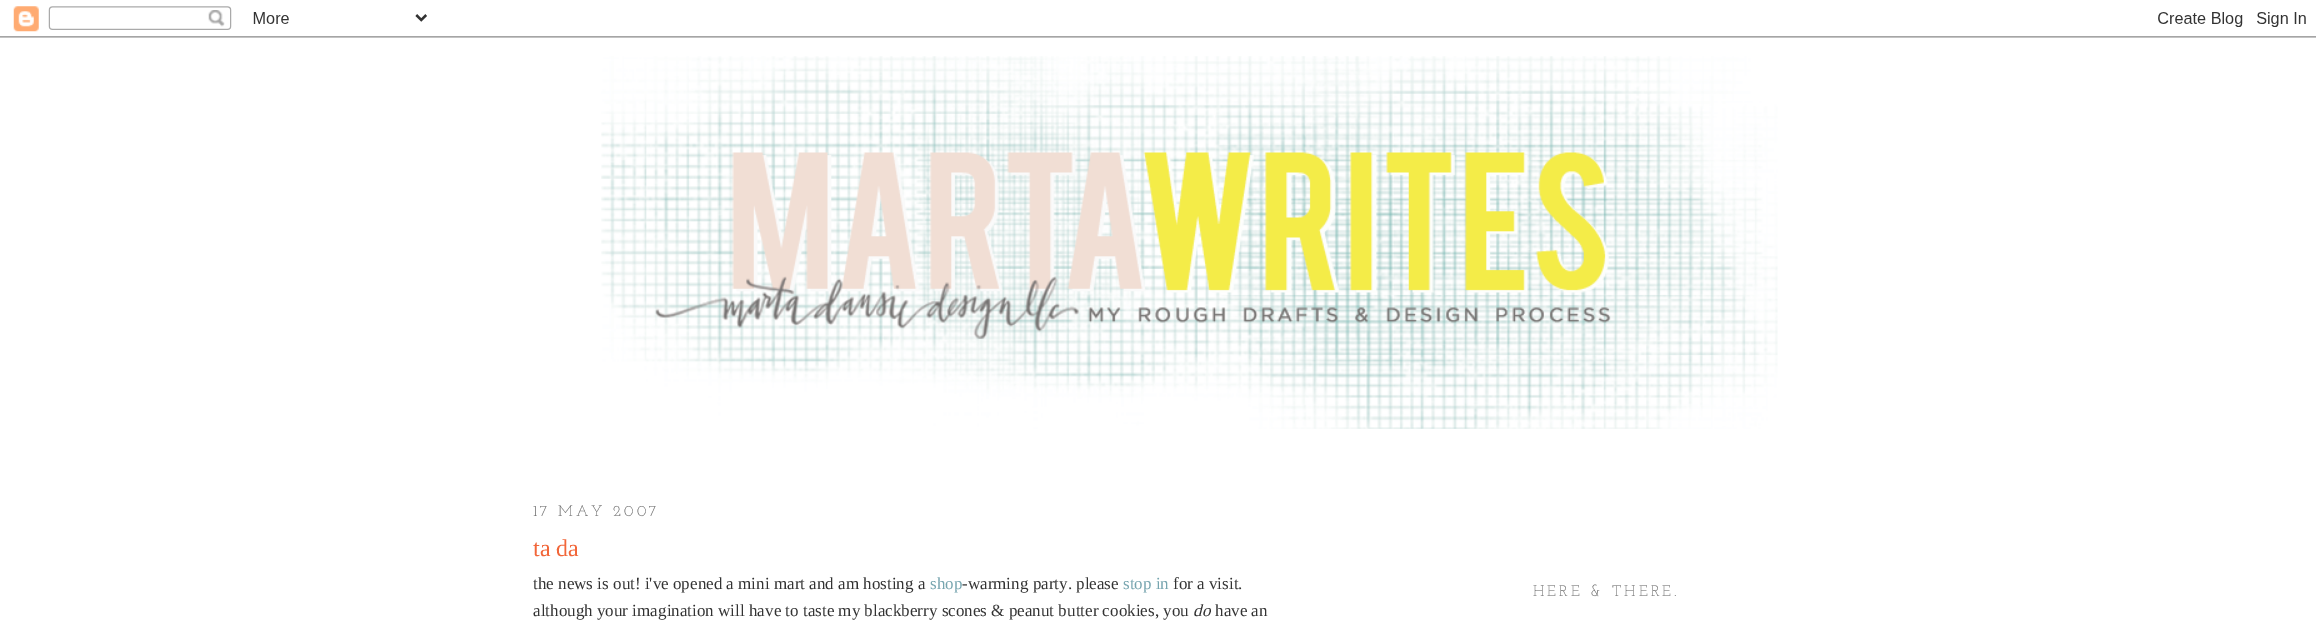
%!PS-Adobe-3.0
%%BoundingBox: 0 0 2316 623
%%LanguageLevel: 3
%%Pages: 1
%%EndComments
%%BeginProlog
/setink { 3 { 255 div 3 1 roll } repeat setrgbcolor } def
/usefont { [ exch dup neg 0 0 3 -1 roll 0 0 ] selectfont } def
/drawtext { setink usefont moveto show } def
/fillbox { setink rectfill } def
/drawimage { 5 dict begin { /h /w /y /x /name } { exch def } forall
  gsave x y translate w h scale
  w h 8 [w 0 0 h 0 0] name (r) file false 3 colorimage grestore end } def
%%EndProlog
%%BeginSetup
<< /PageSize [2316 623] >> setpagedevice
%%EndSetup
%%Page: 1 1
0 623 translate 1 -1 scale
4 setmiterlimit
0 0 2316 623 255 255 255 fillbox
(assets/img1.rgb) 0 6 2316 32 drawimage
(assets/img2.rgb) 601 56 1177 373 drawimage
/JosefinSlab-Thin 15.4 usefont
102 102 102 setink
533 516 moveto 3 0 (17 MAY 2007) ashow
(ta da) 533 556 /Tinos-Regular 24 242 102 57 drawtext
(the news is out! i've opened a mini mart and am hosting a) 533 589 /Tinos-Regular 17.05 51 51 51 drawtext
(shop) 930 589 /Tinos-Regular 17.05 118 165 175 drawtext
(-warming party. please) 962 589 /Tinos-Regular 17.05 51 51 51 drawtext
(stop in) 1123 589 /Tinos-Regular 17.05 118 165 175 drawtext
(for a visit.) 1173 589 /Tinos-Regular 17.05 51 51 51 drawtext
(although your imagination will have to taste my blackberry scones & peanut butter cookies, you) 533 616 /Tinos-Regular 17.05 51 51 51 drawtext
(do) 1193 616 /Tinos-Italic 17.05 51 51 51 drawtext
(have an) 1215 616 /Tinos-Regular 17.05 51 51 51 drawtext
/JosefinSlab-Thin 15.4 usefont
102 102 102 setink
1533 596 moveto 3 0 (HERE & THERE.) ashow
showpage
%%EOF
